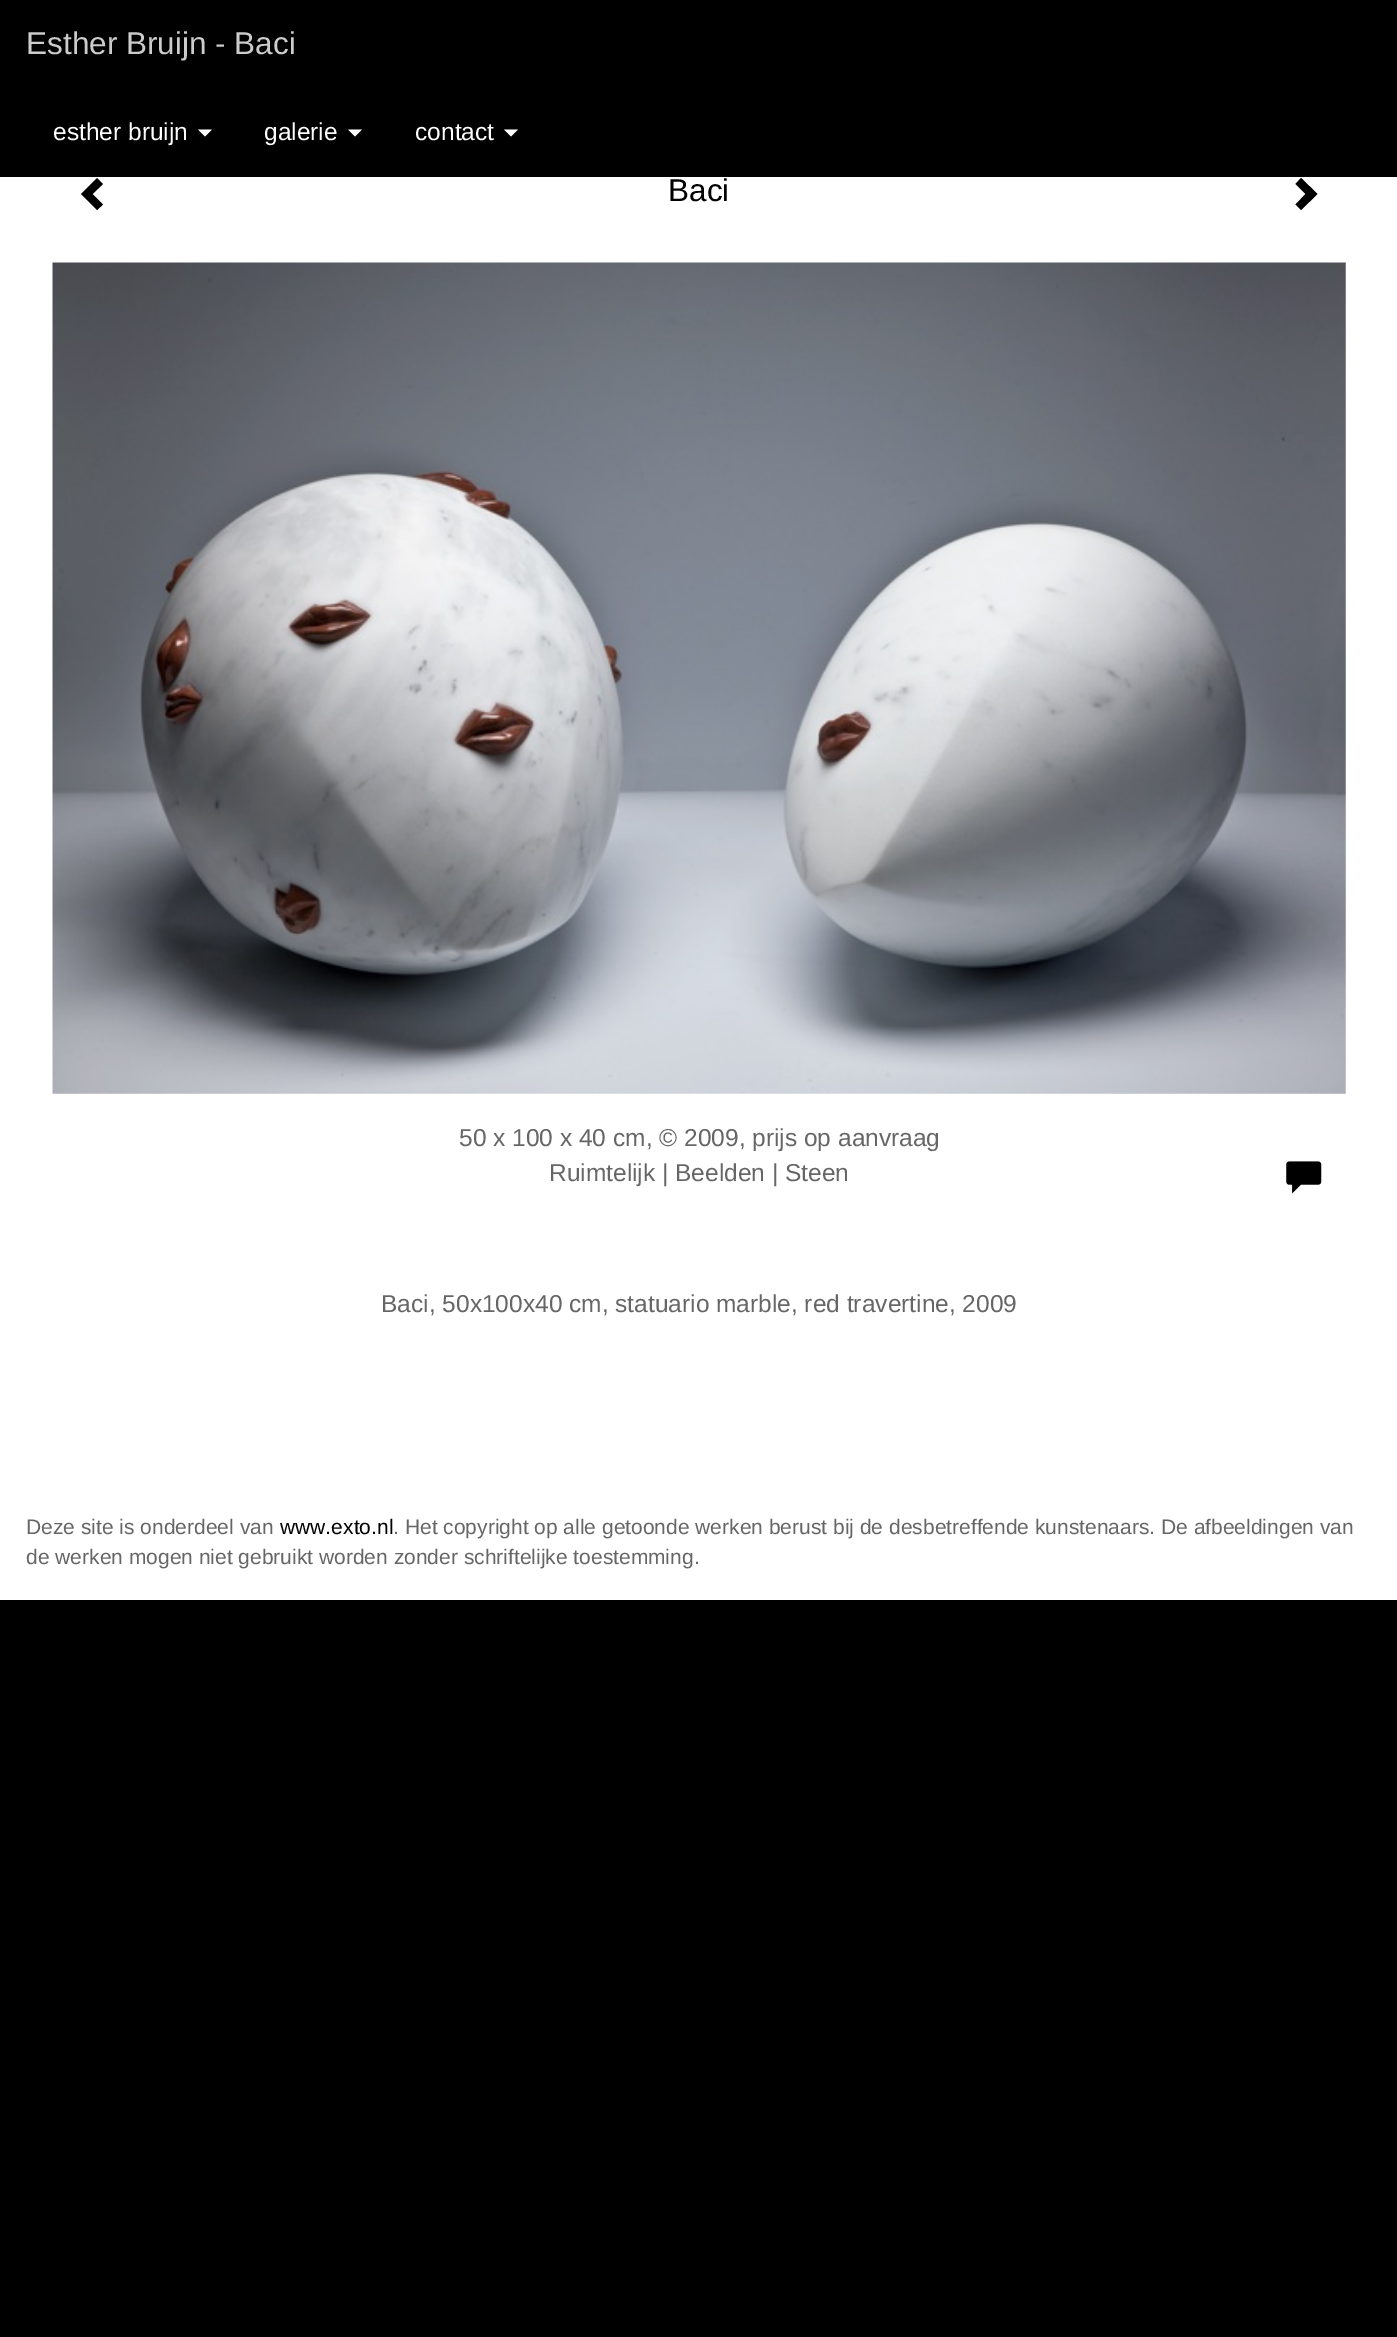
%!PS-Adobe-3.0
%%BoundingBox: 0 0 1397 2337
%%LanguageLevel: 3
%%Pages: 1
%%EndComments
%%BeginProlog
/setink { 3 { 255 div 3 1 roll } repeat setrgbcolor } def
/usefont { [ exch dup neg 0 0 3 -1 roll 0 0 ] selectfont } def
/drawtext { setink usefont moveto show } def
/fillbox { setink rectfill } def
/drawimage { 5 dict begin { /h /w /y /x /name } { exch def } forall
  gsave x y translate w h scale
  w h 8 [w 0 0 h 0 0] name (r) file false 3 colorimage grestore end } def
%%EndProlog
%%BeginSetup
<< /PageSize [1397 2337] >> setpagedevice
%%EndSetup
%%Page: 1 1
0 2337 translate 1 -1 scale
4 setmiterlimit
0 0 1397 2337 0 0 0 fillbox
0 177 1397 1423 255 255 255 fillbox
(Esther Bruijn - Baci) 26 54 /LiberationSans-Regular 31.5 204 204 204 drawtext
(esther bruijn) 53 140 /LiberationSans-Regular 24.5 255 255 255 drawtext
198 129.5 moveto 212 129.5 lineto 205 136.5 lineto closepath fill
(galerie) 264 140 /LiberationSans-Regular 24.5 255 255 255 drawtext
348 129.5 moveto 362 129.5 lineto 355 136.5 lineto closepath fill
(contact) 415 140 /LiberationSans-Regular 24.5 255 255 255 drawtext
504 129.5 moveto 518 129.5 lineto 511 136.5 lineto closepath fill
0 0 0 setink
103 184 moveto 92.5 194 lineto 103 204.5 lineto 97 210 lineto 81 194 lineto 97 178 lineto closepath fill
(Baci) 668 201 /LiberationSans-Regular 31.5 0 0 0 drawtext
1317.5 194 moveto 1301 210 lineto 1295.5 204.5 lineto 1305.5 194 lineto 1295.5 184 lineto 1301 178 lineto closepath fill
(assets/img1.rgb) 52 262 1294 832 drawimage
(50 x 100 x 40 cm, © 2009, prijs op aanvraag) 459 1146 /LiberationSans-Regular 24.5 102 102 102 drawtext
(Ruimtelijk | Beelden | Steen) 549 1181 /LiberationSans-Regular 24.5 102 102 102 drawtext
(assets/img2.rgb) 1286 1161 36 33 drawimage
(Baci, 50x100x40 cm, statuario marble, red travertine, 2009) 381 1312 /LiberationSans-Regular 24.5 102 102 102 drawtext
(Deze site is onderdeel van) 26 1534 /LiberationSans-Regular 21 102 102 102 drawtext
(www.exto.nl) 280 1534 /LiberationSans-Regular 21 0 0 0 drawtext
(. Het copyright op alle getoonde werken berust bij de desbetreffende kunstenaars. De afbeeldingen van) 393 1534 /LiberationSans-Regular 21 102 102 102 drawtext
(de werken mogen niet gebruikt worden zonder schriftelijke toestemming.) 26 1564 /LiberationSans-Regular 21 102 102 102 drawtext
showpage
%%EOF
